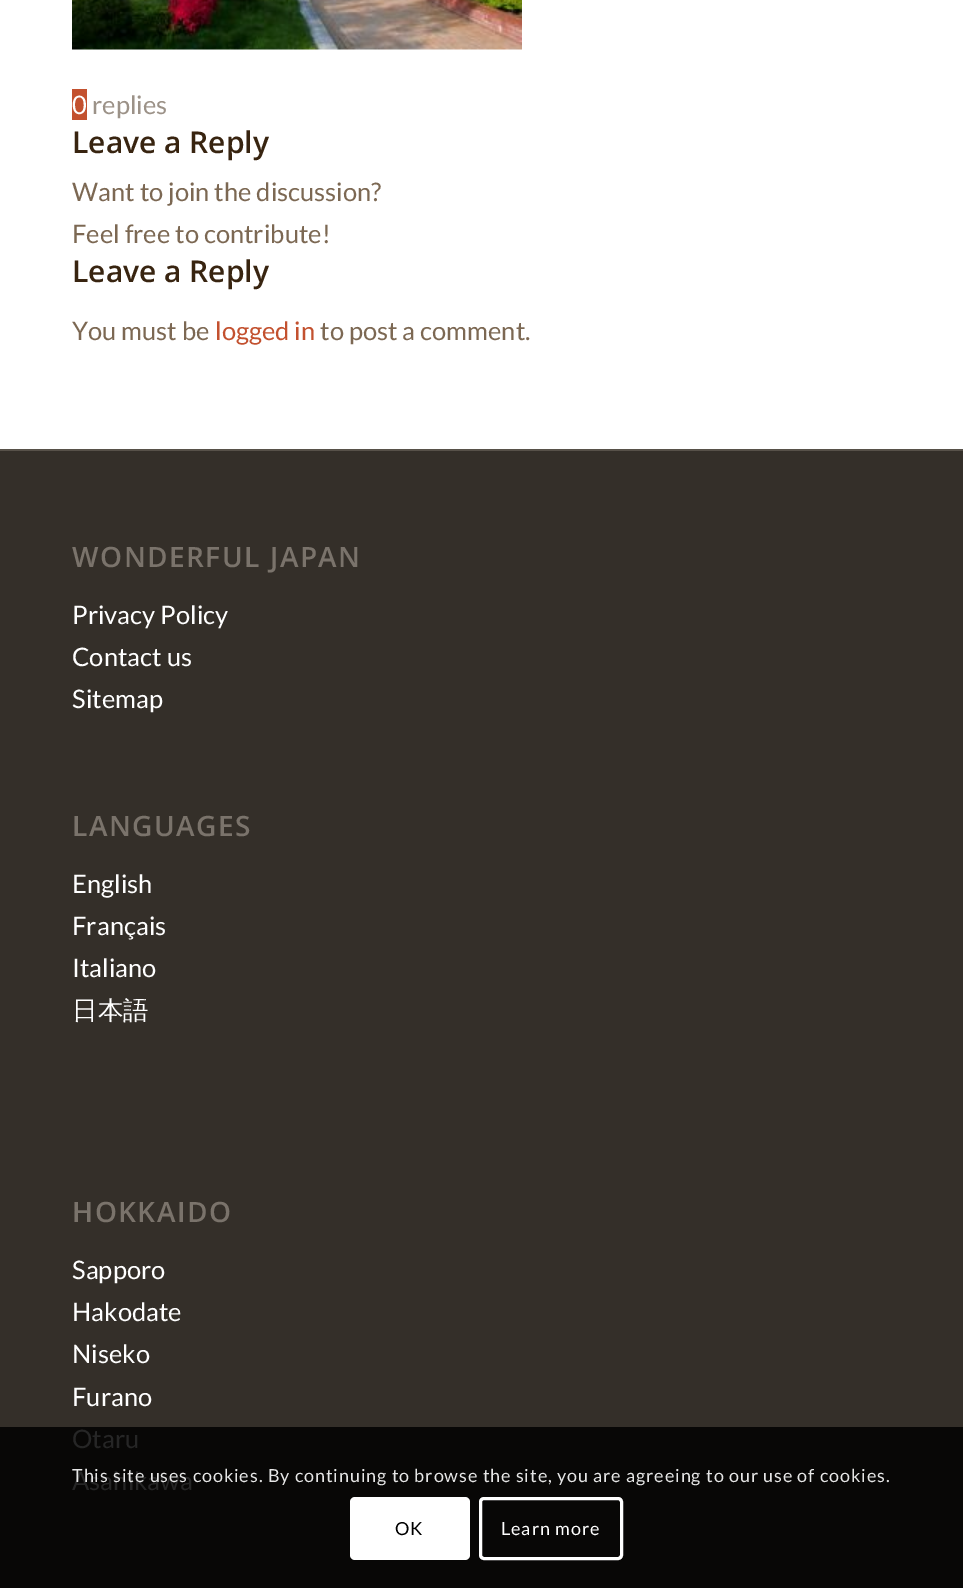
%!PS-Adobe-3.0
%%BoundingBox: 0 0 963 1588
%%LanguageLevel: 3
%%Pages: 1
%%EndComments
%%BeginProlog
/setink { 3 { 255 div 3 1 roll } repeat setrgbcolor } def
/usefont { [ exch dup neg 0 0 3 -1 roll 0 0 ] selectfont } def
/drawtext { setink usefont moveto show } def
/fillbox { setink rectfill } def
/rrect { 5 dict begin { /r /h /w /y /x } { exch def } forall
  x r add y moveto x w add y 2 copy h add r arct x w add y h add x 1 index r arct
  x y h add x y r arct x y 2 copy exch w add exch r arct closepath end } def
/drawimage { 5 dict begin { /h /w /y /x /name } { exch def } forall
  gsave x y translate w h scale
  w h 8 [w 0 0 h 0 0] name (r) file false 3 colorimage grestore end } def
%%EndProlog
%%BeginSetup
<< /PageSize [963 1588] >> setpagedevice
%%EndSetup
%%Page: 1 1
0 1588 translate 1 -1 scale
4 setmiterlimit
0 0 963 1588 255 255 255 fillbox
(assets/img1.rgb) 72 0 450 50 drawimage
72 89 15 31 195 81 47 fillbox
(0) 72 114 /Lato-Regular 25.5 255 255 255 drawtext
(replies) 92 114 /Lato-Regular 25.5 156 146 136 drawtext
(Leave a Reply) 72 153 /OpenSans-SemiBold 30 56 36 16 drawtext
(Want to join the discussion?) 72 201 /Lato-Regular 25.5 124 104 83 drawtext
(Feel free to contribute!) 72 243 /Lato-Regular 25.5 124 104 83 drawtext
(Leave a Reply) 72 282 /OpenSans-SemiBold 30 56 36 16 drawtext
(You must be) 72 340 /Lato-Regular 25.5 124 104 83 drawtext
(logged in) 215 340 /Lato-Regular 25.5 195 81 47 drawtext
(to post a comment.) 320 340 /Lato-Regular 25.5 124 104 83 drawtext
0 451 963 976 52 47 41 fillbox
0 1427 963 161 8 7 6 fillbox
0 449 963 2 87 81 73 fillbox
/OpenSans-SemiBold 28 usefont
122 115 107 setink
72 567 moveto 1.5 0 (WONDERFUL JAPAN) ashow
(Privacy Policy) 72 624 /Lato-Regular 25.5 255 255 255 drawtext
(Contact us) 72 666 /Lato-Regular 25.5 255 255 255 drawtext
(Sitemap) 72 708 /Lato-Regular 25.5 255 255 255 drawtext
/OpenSans-SemiBold 28 usefont
122 115 107 setink
72 836 moveto 1.5 0 (LANGUAGES) ashow
(English) 72 893 /Lato-Regular 25.5 255 255 255 drawtext
(Français) 72 935 /Lato-Regular 25.5 255 255 255 drawtext
(Italiano) 72 977 /Lato-Regular 25.5 255 255 255 drawtext
(日本語) 72 1019 /WenQuanYiZenHei-Medium 25.5 255 255 255 drawtext
/OpenSans-SemiBold 28 usefont
122 115 107 setink
72 1222 moveto 1.5 0 (HOKKAIDO) ashow
(Sapporo) 72 1279 /Lato-Regular 25.5 255 255 255 drawtext
(Hakodate) 72 1321 /Lato-Regular 25.5 255 255 255 drawtext
(Niseko) 72 1363 /Lato-Regular 25.5 255 255 255 drawtext
(Furano) 72 1406 /Lato-Regular 25.5 255 255 255 drawtext
(Otaru) 72 1448 /Lato-Regular 25.5 38 38 38 drawtext
(Asahikawa) 72 1490 /Lato-Regular 25.5 38 38 38 drawtext
/Lato-Regular 18 usefont
230 230 230 setink
72 1482 moveto 0.9 0 (This site uses cookies. By continuing to browse the site, you are agreeing to our use of cookies.) ashow
255 255 255 setink
350 1497 120 63 5 rrect fill
0 0 0 setink
395 1535 moveto 0.9 0 (OK) ashow
255 255 255 setink
3 setlinewidth
480.5 1498.5 141 60 3.5 rrect stroke
501 1535 moveto 0.9 0 (Learn more) ashow
showpage
%%EOF
